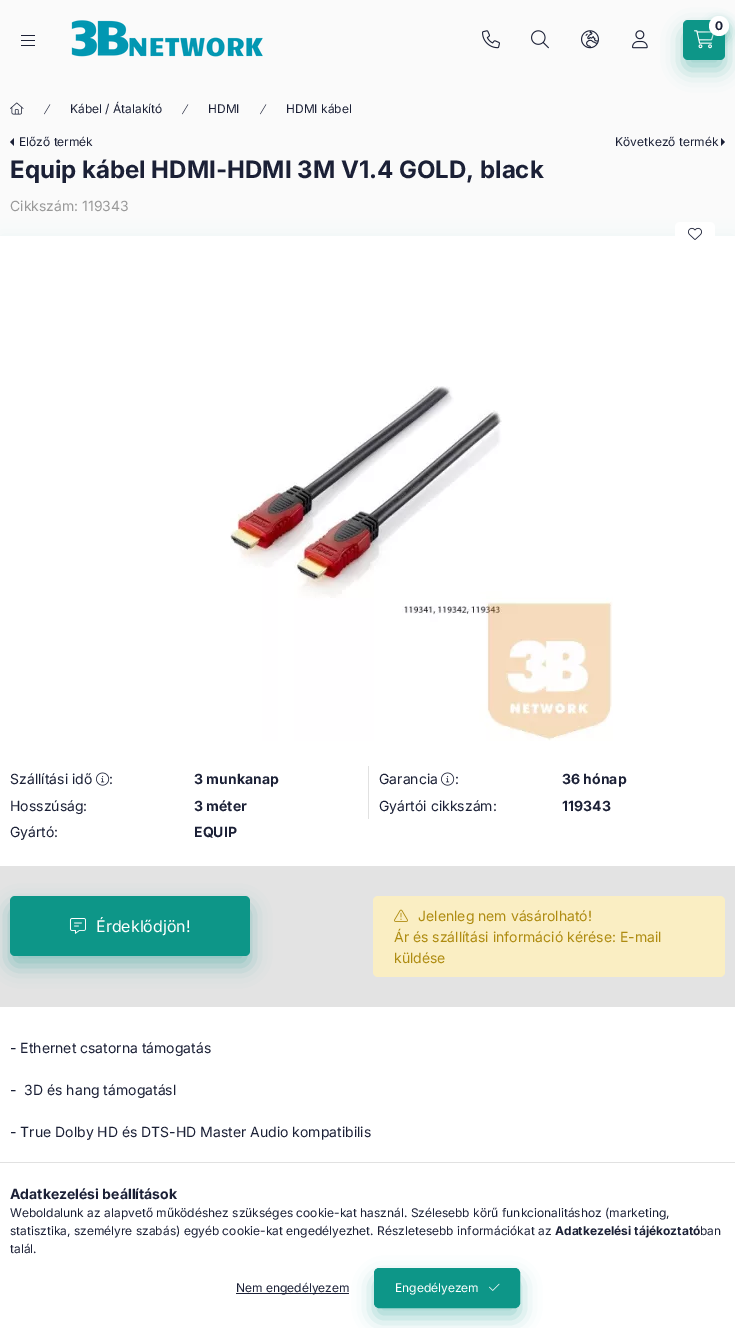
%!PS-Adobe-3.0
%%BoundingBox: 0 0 735 1328
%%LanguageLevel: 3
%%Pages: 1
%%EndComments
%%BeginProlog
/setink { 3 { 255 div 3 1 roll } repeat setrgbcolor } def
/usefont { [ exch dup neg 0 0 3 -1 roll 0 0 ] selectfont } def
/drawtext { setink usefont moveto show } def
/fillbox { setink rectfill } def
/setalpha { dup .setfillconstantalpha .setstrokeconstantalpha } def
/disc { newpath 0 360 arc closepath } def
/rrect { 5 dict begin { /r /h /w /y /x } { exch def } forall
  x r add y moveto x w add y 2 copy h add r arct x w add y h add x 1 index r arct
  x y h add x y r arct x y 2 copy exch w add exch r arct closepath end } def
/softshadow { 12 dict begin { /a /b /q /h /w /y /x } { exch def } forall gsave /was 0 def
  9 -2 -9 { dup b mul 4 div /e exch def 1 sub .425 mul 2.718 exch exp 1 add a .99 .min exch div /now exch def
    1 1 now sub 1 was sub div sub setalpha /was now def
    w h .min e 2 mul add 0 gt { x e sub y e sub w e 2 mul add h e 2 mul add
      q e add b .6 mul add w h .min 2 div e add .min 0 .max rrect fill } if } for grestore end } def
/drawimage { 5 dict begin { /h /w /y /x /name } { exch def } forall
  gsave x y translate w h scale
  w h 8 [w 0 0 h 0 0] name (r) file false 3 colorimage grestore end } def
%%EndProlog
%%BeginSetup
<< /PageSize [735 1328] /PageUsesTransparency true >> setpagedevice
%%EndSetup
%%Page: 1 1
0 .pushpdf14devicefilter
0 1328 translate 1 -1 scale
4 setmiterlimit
0 0 735 1328 250 250 250 fillbox
21 35 14 1 27 32 54 fillbox
21 40 14 1 27 32 54 fillbox
21 45 14 1 27 32 54 fillbox
(assets/img1.rgb) 71 20 192 37 drawimage
(assets/img2.rgb) 482 30 18 19 drawimage
13 150 136 setink
683 30 42 40 5 10 0.4 softshadow
683 20 42 40 5 rrect fill
(assets/img3.rgb) 694 30 20 19 drawimage
709 21 20 20 10 5 0.4 softshadow
255 255 255 setink
719 26 10 disc fill
(0) 715 30 /Inter-Bold 12 27 32 54 drawtext
(assets/img4.rgb) 531 30 18 19 drawimage
(assets/img5.rgb) 581 30 18 19 drawimage
(assets/img6.rgb) 632 30 16 19 drawimage
(assets/img7.rgb) 10 102 14 13 drawimage
(assets/img8.rgb) 44 104 7 11 drawimage
(Kábel / Átalakító) 70 113 /Inter-Regular 12 27 32 54 drawtext
(assets/img8.rgb) 182 104 7 11 drawimage
(HDMI) 208 113 /Inter-Regular 12 27 32 54 drawtext
(assets/img8.rgb) 260 104 7 11 drawimage
(HDMI kábel) 286 113 /Inter-Regular 12 27 32 54 drawtext
14 146 moveto 14 138 lineto 10 142 lineto closepath fill
(Előző termék) 19 146 /Inter-Regular 12 27 32 54 drawtext
(Következő termék) 615 146 /Inter-Regular 12 27 32 54 drawtext
721 146 moveto 721 138 lineto 725 142 lineto closepath fill
(Equip kábel HDMI-HDMI 3M V1.4 GOLD, black) 10 178 /Inter-Bold 24 27 32 54 drawtext
13 150 136 setink
0 236 735 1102 0 10 0.05 softshadow
(Cikkszám: 119343) 10 211 /Inter-Regular 14 153 153 153 drawtext
0 236 735 926 255 255 255 fillbox
675 222 40 24 5 rrect fill
(assets/img9.rgb) 688 227 14 13 drawimage
(assets/img10.rgb) 230 386 383 355 drawimage
(Szállítási idő) 10 784 /Inter-Regular 14 27 32 54 drawtext
(assets/img11.rgb) 96 772 14 14 drawimage
(:) 109 784 /Inter-Regular 14 27 32 54 drawtext
(3 munkanap) 194 784 /Inter-Bold 14 27 32 54 drawtext
368 766 1 53 225 225 225 fillbox
(Garancia) 379 784 /Inter-Regular 14 27 32 54 drawtext
(assets/img11.rgb) 441 772 14 14 drawimage
(:) 455 784 /Inter-Regular 14 27 32 54 drawtext
(36 hónap) 562 784 /Inter-Bold 14 27 32 54 drawtext
(Hosszúság:) 10 811 /Inter-Regular 14 27 32 54 drawtext
(3 méter) 194 811 /Inter-Bold 14 27 32 54 drawtext
(Gyártói cikkszám:) 379 811 /Inter-Regular 14 27 32 54 drawtext
(119343) 562 811 /Inter-Bold 14 27 32 54 drawtext
(Gyártó:) 10 837 /Inter-Regular 14 27 32 54 drawtext
(EQUIP) 194 837 /Inter-Bold 14 27 32 54 drawtext
0 866 735 141 227 227 227 fillbox
13 150 136 setink
10 906 240 60 5 10 0.4 softshadow
10 896 240 60 5 rrect fill
(assets/img12.rgb) 69 918 17 16 drawimage
(Érdeklődjön!) 96 932 /Inter-Regular 16 255 255 255 drawtext
250 238 195 setink
373 896 352 81 5 rrect fill
(assets/img13.rgb) 394 909 14 13 drawimage
(Jelenleg nem vásárolható!) 418 921 /Inter-Regular 14 174 139 16 drawtext
(Ár és szállítási információ kérése: E-mail) 394 942 /Inter-Regular 14 174 139 16 drawtext
(küldése) 394 963 /Inter-Regular 14 174 139 16 drawtext
(- Ethernet csatorna támogatás) 10 1053 /Inter-Regular 14 27 32 54 drawtext
(-  3D és hang támogatásl) 10 1095 /Inter-Regular 14 27 32 54 drawtext
(- True Dolby HD és DTS-HD Master Audio kompatibilis) 10 1137 /Inter-Regular 14 27 32 54 drawtext
0 1163 735 165 255 255 255 fillbox
0 1162 735 1 225 225 225 fillbox
(Adatkezelési beállítások) 10 1199 /Inter-Bold 14 27 32 54 drawtext
(Weboldalunk az alapvető működéshez szükséges cookie-kat használ. Szélesebb körű funkcionalitáshoz \(marketing,) 10 1217 /Inter-Regular 12 27 32 54 drawtext
(statisztika, személyre szabás\) egyéb cookie-kat engedélyezhet. Részletesebb információkat az) 10 1235 /Inter-Regular 12 27 32 54 drawtext
(Adatkezelési tájékoztató) 555 1235 /Inter-Bold 12 27 32 54 drawtext
(ban) 700 1235 /Inter-Regular 12 27 32 54 drawtext
(talál.) 10 1253 /Inter-Regular 12 27 32 54 drawtext
236 1293 113 1 27 32 54 fillbox
(Nem engedélyezem) 236 1292 /Inter-Regular 12 27 32 54 drawtext
13 150 136 setink
374 1278 146 40 5 10 0.4 softshadow
374.5 1268.5 145 39 4.5 rrect gsave fill grestore
stroke
(Engedélyezem) 395 1292 /Inter-Regular 12 255 255 255 drawtext
(assets/img14.rgb) 489 1283 11 8 drawimage
.poppdf14devicefilter showpage
%%EOF
